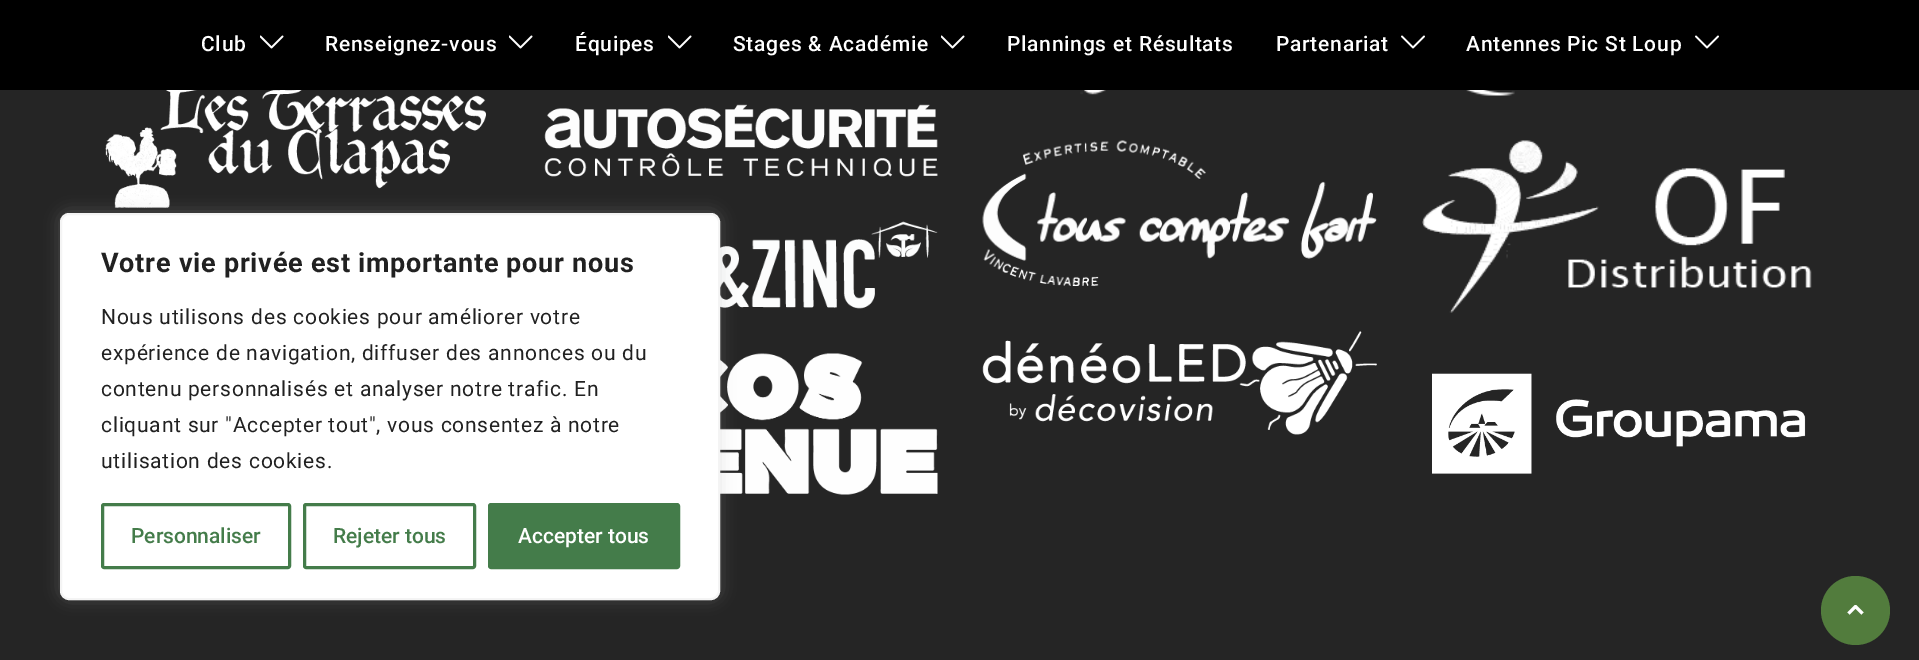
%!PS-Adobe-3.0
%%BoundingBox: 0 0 1919 660
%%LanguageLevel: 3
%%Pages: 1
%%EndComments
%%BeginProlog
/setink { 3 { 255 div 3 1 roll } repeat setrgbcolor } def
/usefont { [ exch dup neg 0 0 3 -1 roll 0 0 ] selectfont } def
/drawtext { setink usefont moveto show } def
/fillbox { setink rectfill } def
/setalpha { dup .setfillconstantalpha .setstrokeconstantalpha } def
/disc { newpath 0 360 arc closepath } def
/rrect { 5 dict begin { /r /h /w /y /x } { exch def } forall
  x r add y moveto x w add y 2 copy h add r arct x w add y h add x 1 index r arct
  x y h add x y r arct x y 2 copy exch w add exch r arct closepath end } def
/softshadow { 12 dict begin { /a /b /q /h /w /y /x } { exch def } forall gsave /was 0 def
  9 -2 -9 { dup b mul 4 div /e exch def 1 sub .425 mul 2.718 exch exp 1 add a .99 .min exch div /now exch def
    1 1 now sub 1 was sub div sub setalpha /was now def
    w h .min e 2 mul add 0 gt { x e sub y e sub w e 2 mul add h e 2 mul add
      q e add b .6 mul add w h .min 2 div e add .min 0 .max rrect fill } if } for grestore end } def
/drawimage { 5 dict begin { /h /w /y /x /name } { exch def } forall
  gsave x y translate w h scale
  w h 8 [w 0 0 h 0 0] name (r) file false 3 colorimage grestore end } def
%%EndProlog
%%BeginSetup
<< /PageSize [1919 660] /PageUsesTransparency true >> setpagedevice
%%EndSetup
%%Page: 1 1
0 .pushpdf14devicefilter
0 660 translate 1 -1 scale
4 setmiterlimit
0 0 1919 660 37 37 37 fillbox
0 0 1919 90 0 0 0 fillbox
/Roboto-Medium 21 usefont
255 255 255 setink
201 51 moveto 0.75 0 (Club) ashow
(assets/img1.rgb) 260 35 24 14 drawimage
325 51 moveto 0.75 0 (Renseignez-vous) ashow
(assets/img1.rgb) 509 35 24 14 drawimage
575 51 moveto 0.75 0 (Équipes) ashow
(assets/img1.rgb) 668 35 24 14 drawimage
733 51 moveto 0.75 0 (Stages & Académie) ashow
(assets/img1.rgb) 941 35 24 14 drawimage
1007 51 moveto 0.75 0 (Plannings et Résultats) ashow
1276 51 moveto 0.75 0 (Partenariat) ashow
(assets/img2.rgb) 1401 35 24 14 drawimage
1466 51 moveto 0.75 0 (Antennes Pic St Loup) ashow
(assets/img2.rgb) 1695 35 24 14 drawimage
(assets/img3.rgb) 105 90 381 118 drawimage
(assets/img4.rgb) 544 104 394 73 drawimage
(assets/img5.rgb) 720 221 218 88 drawimage
(assets/img6.rgb) 720 353 218 142 drawimage
(assets/img7.rgb) 1080 90 26 5 drawimage
(assets/img8.rgb) 982 140 395 146 drawimage
(assets/img9.rgb) 982 331 395 104 drawimage
(assets/img10.rgb) 1466 90 49 6 drawimage
(assets/img11.rgb) 1422 140 390 173 drawimage
(assets/img12.rgb) 1432 373 374 101 drawimage
172 171 171 setink
60 212 660 387 9 7.5 0.3 softshadow
255 255 255 setink
61 214 658 385 8 rrect gsave fill grestore
244 244 244 setink
2 setlinewidth
stroke
/Roboto-Bold 27 usefont
33 33 33 setink
101 272 moveto 0.75 0 (Votre vie privée est importante pour nous) ashow
/Roboto-Regular 21 usefont
101 324 moveto 0.75 0 (Nous utilisons des cookies pour améliorer votre) ashow
101 360 moveto 0.75 0 (expérience de navigation, diffuser des annonces ou du) ashow
101 396 moveto 0.75 0 (contenu personnalisés et analyser notre trafic. En) ashow
101 432 moveto 0.75 0 (cliquant sur "Accepter tout", vous consentez à notre) ashow
101 468 moveto 0.75 0 (utilisation des cookies.) ashow
68 124 74 setink
3 setlinewidth
102.5 504.5 187 63 1.5 rrect stroke
(Personnaliser) 131 543 /Roboto-Medium 21 68 124 74 drawtext
304.5 504.5 170 63 1.5 rrect stroke
(Rejeter tous) 333 543 /Roboto-Medium 21 68 124 74 drawtext
489.5 504.5 189 63 1.5 rrect gsave fill grestore
stroke
(Accepter tous) 518 543 /Roboto-Medium 21 255 255 255 drawtext
82 124 61 setink
1855.5 610.5 34.5 disc fill
255 255 255 setink
1 setlinejoin
1848.5 613.5 moveto 1855.5 606.5 lineto 1862.5 613.5 lineto stroke
.poppdf14devicefilter showpage
%%EOF
